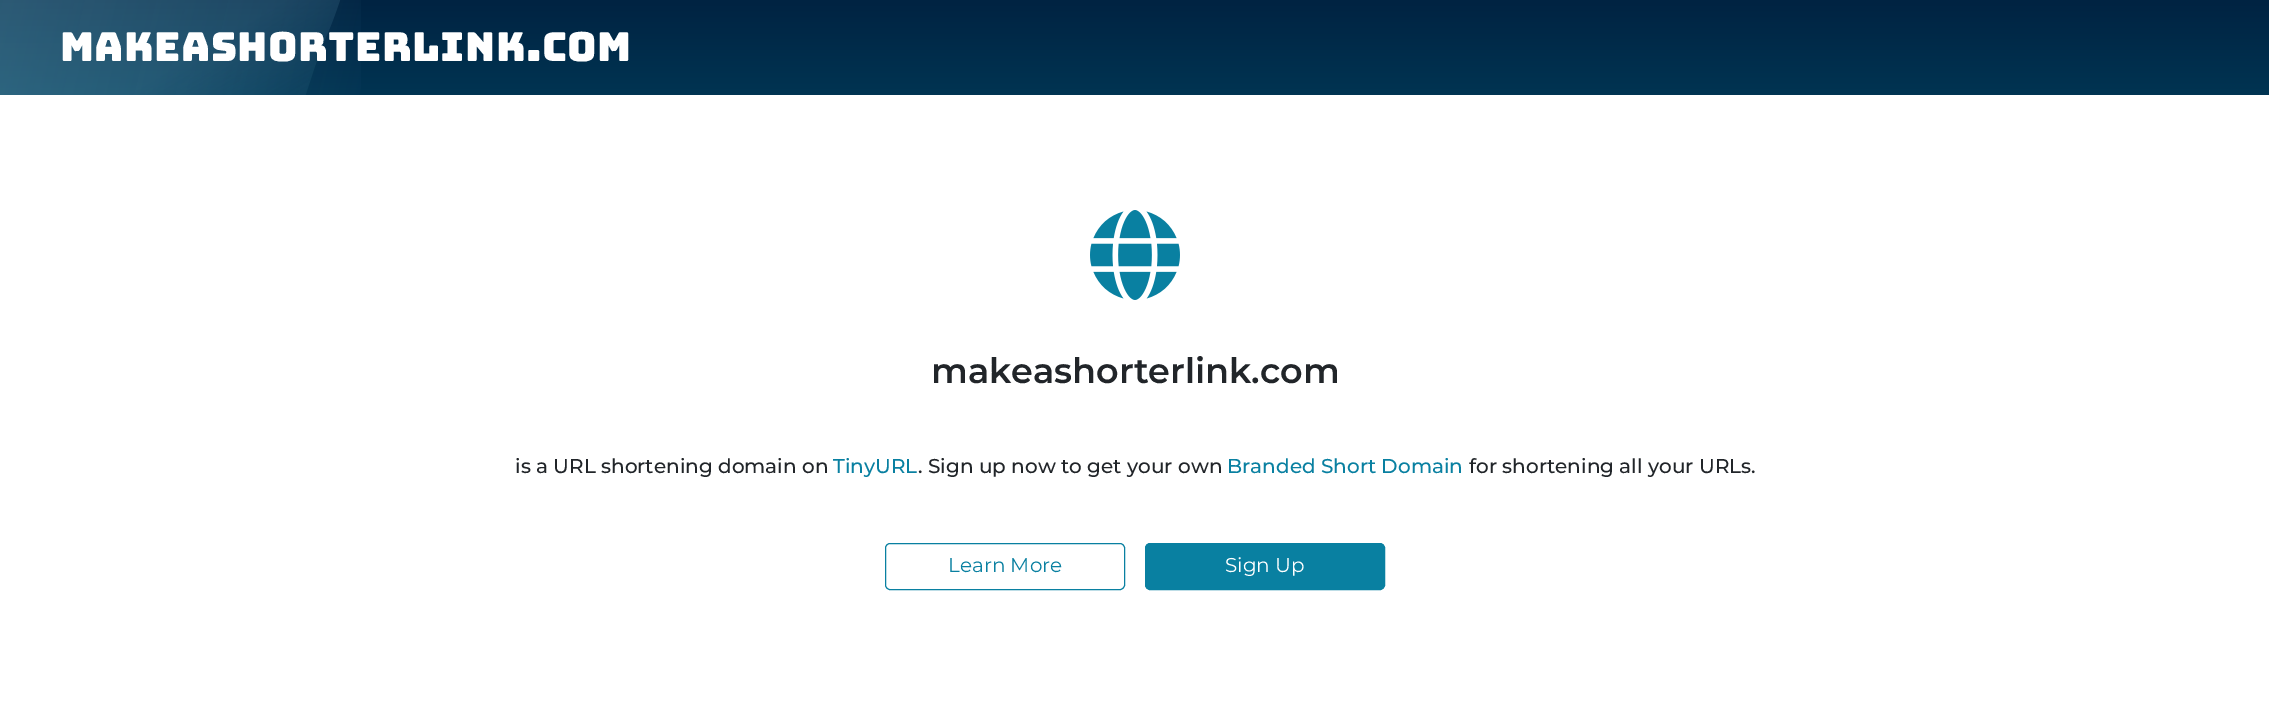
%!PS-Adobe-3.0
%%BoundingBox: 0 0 2269 714
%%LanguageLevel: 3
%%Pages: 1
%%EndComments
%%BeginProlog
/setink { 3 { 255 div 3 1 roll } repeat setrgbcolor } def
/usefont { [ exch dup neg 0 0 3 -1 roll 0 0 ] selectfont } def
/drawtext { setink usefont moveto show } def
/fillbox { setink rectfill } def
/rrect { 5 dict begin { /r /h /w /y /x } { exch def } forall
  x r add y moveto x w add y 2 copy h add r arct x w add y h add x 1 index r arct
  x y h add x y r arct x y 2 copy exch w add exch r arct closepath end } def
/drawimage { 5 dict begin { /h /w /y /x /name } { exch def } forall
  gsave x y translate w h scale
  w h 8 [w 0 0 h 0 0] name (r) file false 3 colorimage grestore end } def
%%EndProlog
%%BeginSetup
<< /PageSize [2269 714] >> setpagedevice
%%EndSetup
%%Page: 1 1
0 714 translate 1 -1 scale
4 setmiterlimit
0 0 2269 714 255 255 255 fillbox
gsave 0 0 moveto 2269 0 lineto 2269 95 lineto 0 95 lineto closepath clip newpath
<< /ShadingType 2 /ColorSpace /DeviceRGB /Coords [1135 0 1135 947] /Extend [true true] /Function << /FunctionType 2 /Domain [0 1] /C0 [0 0.137 0.259] /C1 [0.043 0.788 0.89] /N 1 >> >> shfill grestore
(assets/img1.rgb) 0 0 361 95 drawimage
/Bungee-Regular 40 usefont
60 61 moveto 0.5 0 (makeashorterlink.com) ashow
(assets/img2.rgb) 1090 210 90 90 drawimage
(makeashorterlink.com) 931 383 /Montserrat-SemiBold 35 33 37 41 drawtext
(is a URL shortening domain on) 515 473 /Montserrat-Medium 20 33 37 41 drawtext
(TinyURL) 833 473 /Montserrat-Medium 20 9 128 161 drawtext
(. Sign up now to get your own) 918 473 /Montserrat-Medium 20 33 37 41 drawtext
(Branded Short Domain) 1227 473 /Montserrat-Medium 20 9 128 161 drawtext
(for shortening all your URLs.) 1469 473 /Montserrat-Medium 20 33 37 41 drawtext
9 128 161 setink
885.5 543.5 239 46 4.5 rrect stroke
(Learn More) 948 572 /Montserrat-Regular 20 9 128 161 drawtext
1145.5 543.5 239 46 4.5 rrect gsave fill grestore
stroke
(Sign Up) 1225 572 /Montserrat-Regular 20 255 255 255 drawtext
showpage
%%EOF
